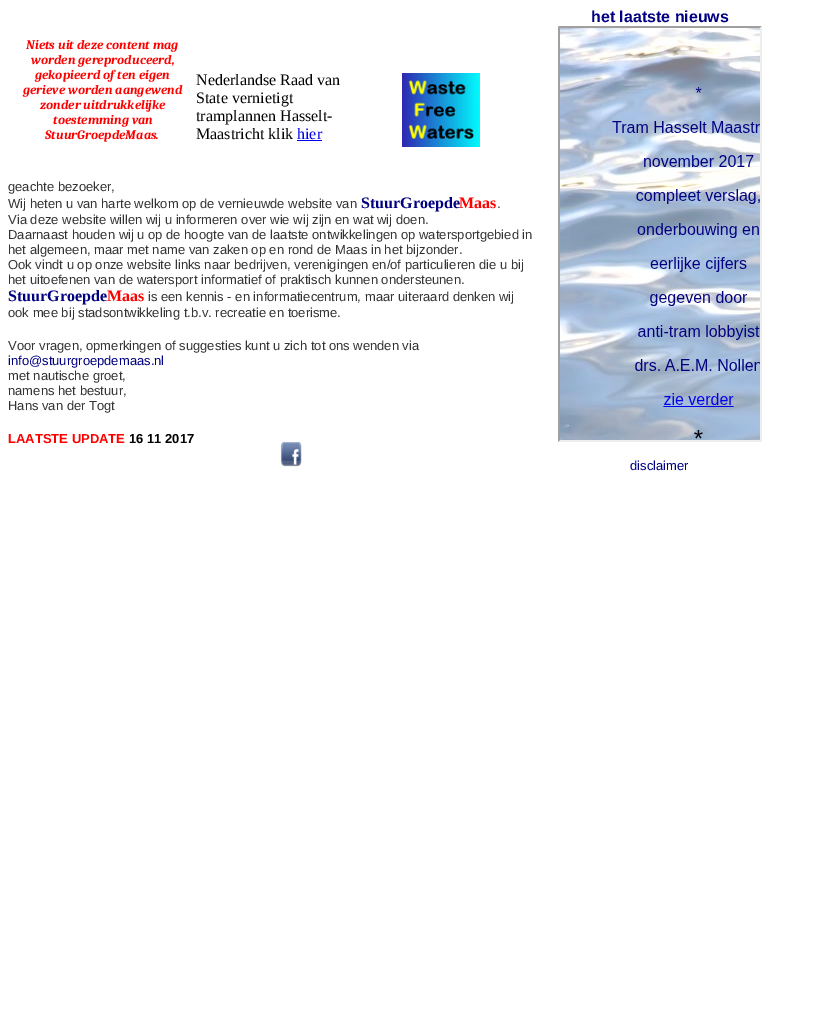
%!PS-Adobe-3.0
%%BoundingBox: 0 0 818 1024
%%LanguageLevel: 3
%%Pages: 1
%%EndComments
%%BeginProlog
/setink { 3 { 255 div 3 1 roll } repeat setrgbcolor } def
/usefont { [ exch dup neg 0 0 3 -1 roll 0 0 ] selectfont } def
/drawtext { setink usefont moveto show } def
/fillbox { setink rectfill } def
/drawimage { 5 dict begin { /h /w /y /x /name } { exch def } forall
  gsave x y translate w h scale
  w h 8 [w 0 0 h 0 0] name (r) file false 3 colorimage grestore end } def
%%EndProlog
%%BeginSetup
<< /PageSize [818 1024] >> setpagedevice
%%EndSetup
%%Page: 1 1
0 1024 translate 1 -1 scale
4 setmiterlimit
0 0 818 1024 255 255 255 fillbox
(Niets uit deze content mag) 26 49 /Caladea-BoldItalic 13 255 0 0 drawtext
(worden gereproduceerd,) 31 64 /Caladea-BoldItalic 13 255 0 0 drawtext
(gekopieerd of ten eigen) 35 79 /Caladea-BoldItalic 13 255 0 0 drawtext
(gerieve worden aangewend) 23 94 /Caladea-BoldItalic 13 255 0 0 drawtext
(zonder uitdrukkelijke) 40 109 /Caladea-BoldItalic 13 255 0 0 drawtext
(toestemming van) 53 124 /Caladea-BoldItalic 13 255 0 0 drawtext
(StuurGroepdeMaas.) 45 139 /Caladea-BoldItalic 13 255 0 0 drawtext
(Nederlandse Raad van) 196 85 /LiberationSerif-Regular 16 0 0 0 drawtext
(assets/img1.rgb) 402 73 78 74 drawimage
(State vernietigt) 196 103 /LiberationSerif-Regular 16 0 0 0 drawtext
(tramplannen Hasselt-) 196 121 /LiberationSerif-Regular 16 0 0 0 drawtext
(Maastricht klik) 196 139 /LiberationSerif-Regular 16 0 0 0 drawtext
(hier) 297 139 /LiberationSerif-Regular 16 0 0 238 drawtext
297 140 25 1 0 0 238 fillbox
(geachte bezoeker,) 8 191 /LiberationSans-Regular 13 51 51 51 drawtext
(Wij heten u van harte welkom op de vernieuwde website van) 8 208 /LiberationSans-Regular 13 51 51 51 drawtext
(StuurGroepde) 361 208 /LiberationSerif-Bold 16 0 0 128 drawtext
(Maas) 459 208 /LiberationSerif-Bold 16 255 0 0 drawtext
(.) 497 208 /LiberationSans-Regular 13 51 51 51 drawtext
(Via deze website willen wij u informeren over wie wij zijn en wat wij doen.) 8 224 /LiberationSans-Regular 13 51 51 51 drawtext
(Daarnaast houden wij u op de hoogte van de laatste ontwikkelingen op watersportgebied in) 8 239 /LiberationSans-Regular 13 51 51 51 drawtext
(het algemeen, maar met name van zaken op en rond de Maas in het bijzonder.) 8 254 /LiberationSans-Regular 13 51 51 51 drawtext
(Ook vindt u op onze website links naar bedrijven, verenigingen en/of particulieren die u bij) 8 269 /LiberationSans-Regular 13 51 51 51 drawtext
(het uitoefenen van de watersport informatief of praktisch kunnen ondersteunen.) 8 284 /LiberationSans-Regular 13 51 51 51 drawtext
(StuurGroepde) 8 301 /LiberationSerif-Bold 16 0 0 128 drawtext
(Maas) 107 301 /LiberationSerif-Bold 16 255 0 0 drawtext
(is een kennis - en informatiecentrum, maar uiteraard denken wij) 148 301 /LiberationSans-Regular 13 51 51 51 drawtext
(ook mee bij stadsontwikkeling t.b.v. recreatie en toerisme.) 8 317 /LiberationSans-Regular 13 51 51 51 drawtext
(Voor vragen, opmerkingen of suggesties kunt u zich tot ons wenden via) 8 350 /LiberationSans-Regular 13 51 51 51 drawtext
(info@stuurgroepdemaas.nl) 8 365 /LiberationSans-Regular 13 0 0 128 drawtext
(met nautische groet,) 8 380 /LiberationSans-Regular 13 51 51 51 drawtext
(namens het bestuur,) 8 395 /LiberationSans-Regular 13 51 51 51 drawtext
(Hans van der Togt) 8 410 /LiberationSans-Regular 13 51 51 51 drawtext
(LAATSTE UPDATE) 8 443 /LiberationSans-Bold 13 255 0 0 drawtext
(16 11 2017) 129 443 /LiberationSans-Bold 13 0 0 0 drawtext
(assets/img2.rgb) 280 441 22 26 drawimage
(het laatste nieuws) 591 22 /LiberationSans-Bold 16 0 0 128 drawtext
159 159 159 setink
558 26 moveto 762 26 lineto 760 28 lineto 560 28 lineto closepath fill
238 238 238 setink
762 26 moveto 762 442 lineto 760 440 lineto 760 28 lineto closepath fill
762 442 moveto 558 442 lineto 560 440 lineto 760 440 lineto closepath fill
159 159 159 setink
558 442 moveto 558 26 lineto 560 28 lineto 560 440 lineto closepath fill
(assets/img3.rgb) 560 28 200 412 drawimage
(disclaimer) 630 470 /LiberationSans-Regular 13 0 0 128 drawtext
showpage
%%EOF
